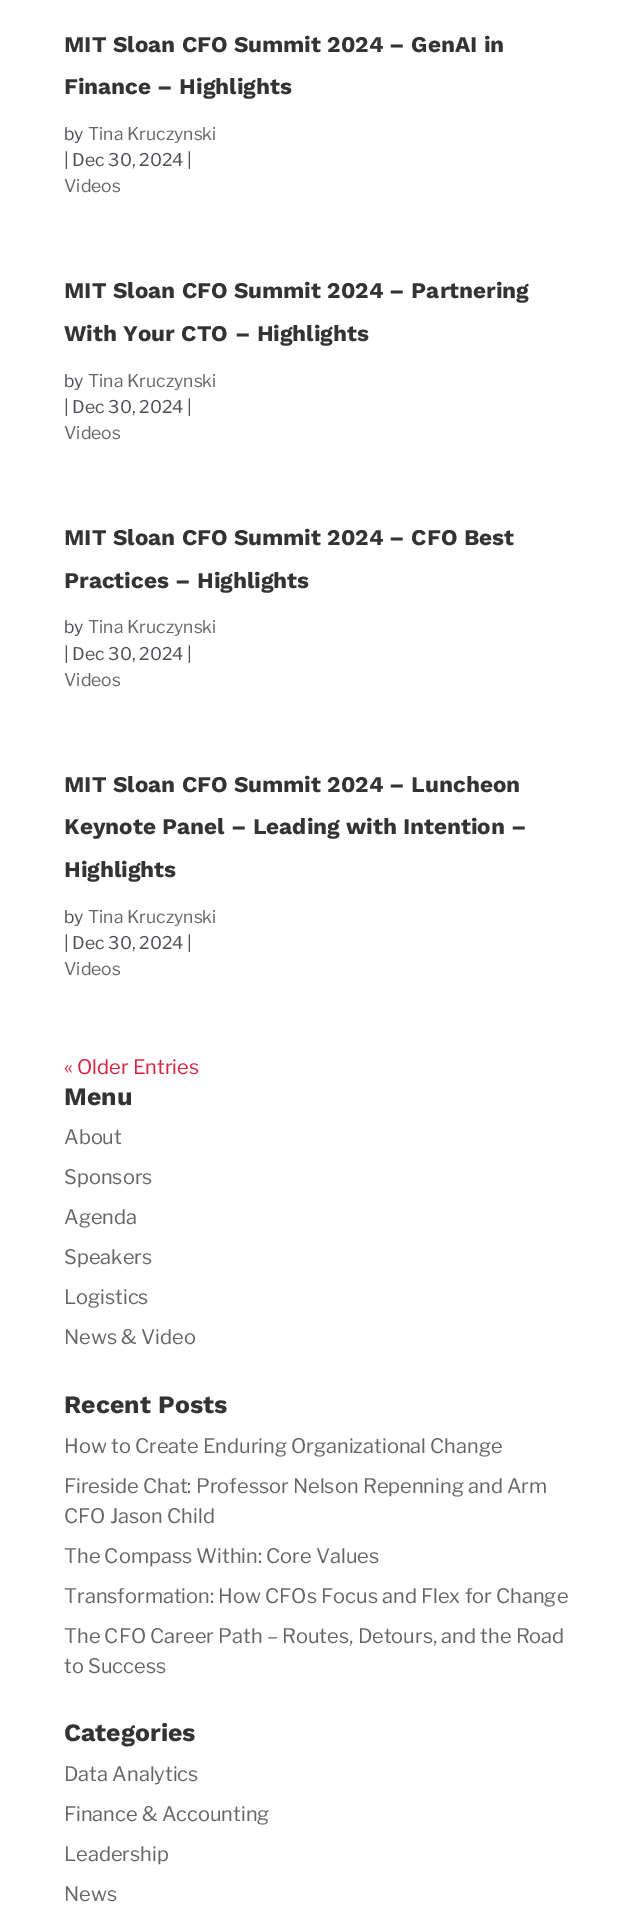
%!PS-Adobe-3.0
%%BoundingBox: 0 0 640 1929
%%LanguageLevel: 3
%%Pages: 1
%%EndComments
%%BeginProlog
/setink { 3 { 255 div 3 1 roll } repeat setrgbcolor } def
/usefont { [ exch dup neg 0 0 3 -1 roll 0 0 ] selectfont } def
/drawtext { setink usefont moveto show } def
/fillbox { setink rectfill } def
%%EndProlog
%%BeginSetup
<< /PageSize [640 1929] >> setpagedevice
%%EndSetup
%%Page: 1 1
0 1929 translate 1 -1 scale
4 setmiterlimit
0 0 640 1929 255 255 255 fillbox
(MIT Sloan CFO Summit 2024 – GenAI in) 64 52 /WorkSans-Bold 22.5 51 51 51 drawtext
(Finance – Highlights) 64 94 /WorkSans-Bold 22.5 51 51 51 drawtext
(by) 64 140 /LibreFranklin-Regular 17.5 78 78 86 drawtext
(Tina Kruczynski) 88 140 /LibreFranklin-Regular 17.5 102 102 102 drawtext
(| Dec 30, 2024 |) 64 166 /LibreFranklin-Regular 17.5 78 78 86 drawtext
(Videos) 64 192 /LibreFranklin-Regular 17.5 102 102 102 drawtext
(MIT Sloan CFO Summit 2024 – Partnering) 64 298 /WorkSans-Bold 22.5 51 51 51 drawtext
(With Your CTO – Highlights) 64 341 /WorkSans-Bold 22.5 51 51 51 drawtext
(by) 64 387 /LibreFranklin-Regular 17.5 78 78 86 drawtext
(Tina Kruczynski) 88 387 /LibreFranklin-Regular 17.5 102 102 102 drawtext
(| Dec 30, 2024 |) 64 413 /LibreFranklin-Regular 17.5 78 78 86 drawtext
(Videos) 64 439 /LibreFranklin-Regular 17.5 102 102 102 drawtext
(MIT Sloan CFO Summit 2024 – CFO Best) 64 545 /WorkSans-Bold 22.5 51 51 51 drawtext
(Practices – Highlights) 64 588 /WorkSans-Bold 22.5 51 51 51 drawtext
(by) 64 633 /LibreFranklin-Regular 17.5 78 78 86 drawtext
(Tina Kruczynski) 88 633 /LibreFranklin-Regular 17.5 102 102 102 drawtext
(| Dec 30, 2024 |) 64 660 /LibreFranklin-Regular 17.5 78 78 86 drawtext
(Videos) 64 686 /LibreFranklin-Regular 17.5 102 102 102 drawtext
(MIT Sloan CFO Summit 2024 – Luncheon) 64 792 /WorkSans-Bold 22.5 51 51 51 drawtext
(Keynote Panel – Leading with Intention –) 64 834 /WorkSans-Bold 22.5 51 51 51 drawtext
(Highlights) 64 877 /WorkSans-Bold 22.5 51 51 51 drawtext
(by) 64 923 /LibreFranklin-Regular 17.5 78 78 86 drawtext
(Tina Kruczynski) 88 923 /LibreFranklin-Regular 17.5 102 102 102 drawtext
(| Dec 30, 2024 |) 64 949 /LibreFranklin-Regular 17.5 78 78 86 drawtext
(Videos) 64 975 /LibreFranklin-Regular 17.5 102 102 102 drawtext
(« Older Entries) 64 1074 /LibreFranklin-Regular 20 214 37 67 drawtext
(Menu) 64 1105 /WorkSans-Bold 25 51 51 51 drawtext
(About) 64 1144 /LibreFranklin-Regular 20 102 102 102 drawtext
(Sponsors) 64 1184 /LibreFranklin-Regular 20 102 102 102 drawtext
(Agenda) 64 1224 /LibreFranklin-Regular 20 102 102 102 drawtext
(Speakers) 64 1264 /LibreFranklin-Regular 20 102 102 102 drawtext
(Logistics) 64 1304 /LibreFranklin-Regular 20 102 102 102 drawtext
(News & Video) 64 1344 /LibreFranklin-Regular 20 102 102 102 drawtext
(Recent Posts) 64 1413 /WorkSans-Bold 25 51 51 51 drawtext
(How to Create Enduring Organizational Change) 64 1453 /LibreFranklin-Regular 20 102 102 102 drawtext
(Fireside Chat: Professor Nelson Repenning and Arm) 64 1493 /LibreFranklin-Regular 20 102 102 102 drawtext
(CFO Jason Child) 64 1523 /LibreFranklin-Regular 20 102 102 102 drawtext
(The Compass Within: Core Values) 64 1563 /LibreFranklin-Regular 20 102 102 102 drawtext
(Transformation: How CFOs Focus and Flex for Change) 64 1603 /LibreFranklin-Regular 20 102 102 102 drawtext
(The CFO Career Path – Routes, Detours, and the Road) 64 1643 /LibreFranklin-Regular 20 102 102 102 drawtext
(to Success) 64 1673 /LibreFranklin-Regular 20 102 102 102 drawtext
(Categories) 64 1741 /WorkSans-Bold 25 51 51 51 drawtext
(Data Analytics) 64 1781 /LibreFranklin-Regular 20 102 102 102 drawtext
(Finance & Accounting) 64 1821 /LibreFranklin-Regular 20 102 102 102 drawtext
(Leadership) 64 1861 /LibreFranklin-Regular 20 102 102 102 drawtext
(News) 64 1901 /LibreFranklin-Regular 20 102 102 102 drawtext
showpage
%%EOF
